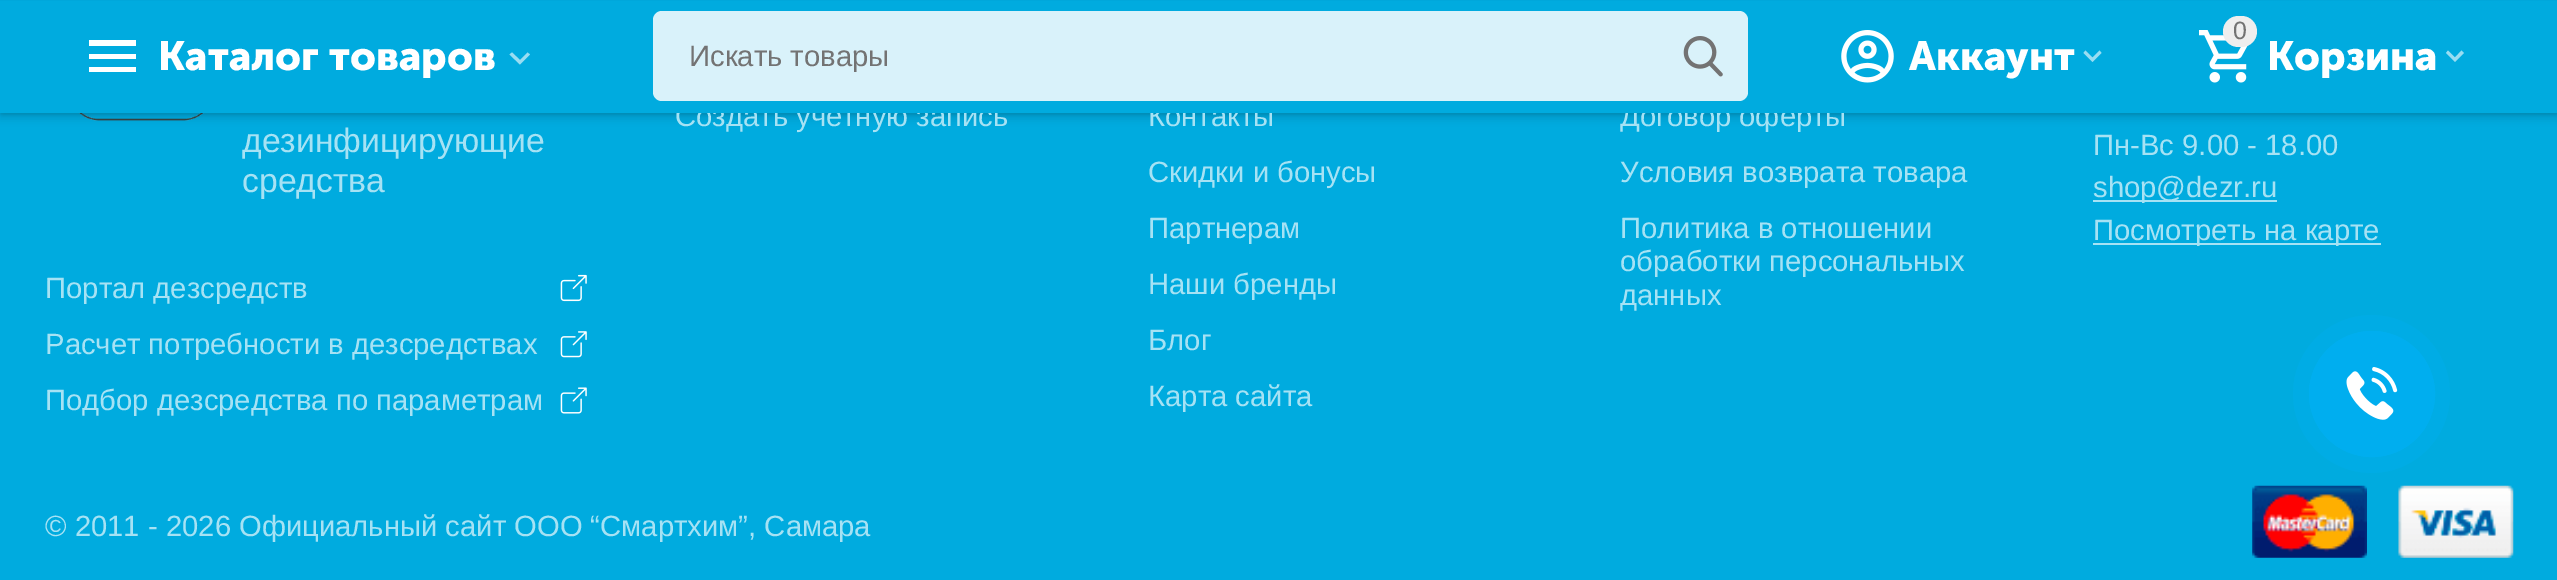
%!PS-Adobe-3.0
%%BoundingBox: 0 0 2557 580
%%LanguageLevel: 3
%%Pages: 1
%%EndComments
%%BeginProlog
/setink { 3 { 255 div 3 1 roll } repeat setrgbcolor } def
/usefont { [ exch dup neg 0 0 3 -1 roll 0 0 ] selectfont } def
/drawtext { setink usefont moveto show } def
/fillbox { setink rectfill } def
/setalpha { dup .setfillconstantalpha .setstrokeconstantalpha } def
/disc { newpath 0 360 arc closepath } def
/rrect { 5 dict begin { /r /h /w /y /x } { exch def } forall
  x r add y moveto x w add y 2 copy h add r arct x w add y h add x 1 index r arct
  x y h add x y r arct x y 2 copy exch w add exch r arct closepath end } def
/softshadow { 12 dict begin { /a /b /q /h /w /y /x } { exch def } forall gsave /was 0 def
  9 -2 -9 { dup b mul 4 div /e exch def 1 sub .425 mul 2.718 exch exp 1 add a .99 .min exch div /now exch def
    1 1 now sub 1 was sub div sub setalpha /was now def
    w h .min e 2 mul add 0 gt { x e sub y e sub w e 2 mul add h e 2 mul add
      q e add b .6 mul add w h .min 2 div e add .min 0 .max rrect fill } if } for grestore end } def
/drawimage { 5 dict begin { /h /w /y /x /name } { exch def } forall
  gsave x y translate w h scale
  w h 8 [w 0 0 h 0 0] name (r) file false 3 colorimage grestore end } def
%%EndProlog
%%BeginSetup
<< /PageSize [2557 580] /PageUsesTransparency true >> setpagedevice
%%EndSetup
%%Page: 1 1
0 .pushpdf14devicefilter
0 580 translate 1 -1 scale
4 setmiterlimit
0 0 2557 580 0 171 223 fillbox
(assets/img4.rgb) 79 113 125 8 drawimage
0 0 0 setink
0 7 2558 112 0 3.5 0.1 softshadow
0 2 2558 113 0 1 0.1 softshadow
(Создать учетную запись) 675 126 /LiberationSans-Regular 29.25 166 226 244 drawtext
(Контакты) 1148 126 /LiberationSans-Regular 29.25 166 226 244 drawtext
(Договор оферты) 1620 126 /LiberationSans-Regular 29.25 166 226 244 drawtext
0 1 2557 112 0 171 223 fillbox
255 255 255 setink
89 72 moveto 136 72 lineto 136 67 lineto 89 67 lineto closepath 89 59 moveto 136 59 lineto 136 54 lineto 89 54 lineto closepath 89 40 moveto 89 46 lineto 136 46 lineto 136 40 lineto closepath fill
(Каталог товаров) 158 70 /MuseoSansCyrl-Bold 40.5 255 255 255 drawtext
153 221 242 setink
527.5 52.5 moveto 520 60 lineto 512 52.5 lineto 509.5 54.5 lineto 520 64.5 lineto 530 54.5 lineto closepath fill
217 242 250 setink
653 11 1095 90 9 rrect fill
(Искать товары) 689 66 /LiberationSans-Regular 29.25 115 115 115 drawtext
(assets/img1.rgb) 1683 36 40 41 drawimage
(assets/img2.rgb) 1841 30 53 53 drawimage
(Аккаунт) 1909 70 /MuseoSansCyrl-Bold 40.5 255 255 255 drawtext
153 221 242 setink
2099.5 50.5 moveto 2092.5 57.5 lineto 2085.5 50.5 lineto 2083.5 53 lineto 2092.5 62 lineto 2101.5 53 lineto closepath fill
(assets/img3.rgb) 2199 30 49 53 drawimage
238 238 238 setink
2223 16 34 31 15.5 rrect fill
(0) 2233 39 /LiberationSans-Regular 25 115 115 115 drawtext
(Корзина) 2267 70 /MuseoSansCyrl-Bold 40.5 255 255 255 drawtext
153 221 242 setink
2461.5 50.5 moveto 2455 57.5 lineto 2448 50.5 lineto 2446 53 lineto 2455 62 lineto 2464 53 lineto closepath fill
(дезинфицирующие) 242 152 /LiberationSans-Regular 33.75 166 226 244 drawtext
(средства) 242 192 /LiberationSans-Regular 33.75 166 226 244 drawtext
(Портал дезсредств) 45 298 /LiberationSans-Regular 29.25 166 226 244 drawtext
(assets/img5.rgb) 560 274 27 28 drawimage
(Расчет потребности в дезсредствах) 45 354 /LiberationSans-Regular 29.25 166 226 244 drawtext
(assets/img6.rgb) 560 331 27 27 drawimage
(Подбор дезсредства по параметрам) 45 410 /LiberationSans-Regular 29.25 166 226 244 drawtext
(assets/img7.rgb) 560 387 27 27 drawimage
(Скидки и бонусы) 1148 182 /LiberationSans-Regular 29.25 166 226 244 drawtext
(Партнерам) 1148 238 /LiberationSans-Regular 29.25 166 226 244 drawtext
(Наши бренды) 1148 294 /LiberationSans-Regular 29.25 166 226 244 drawtext
(Блог) 1148 350 /LiberationSans-Regular 29.25 166 226 244 drawtext
(Карта сайта) 1148 406 /LiberationSans-Regular 29.25 166 226 244 drawtext
(Условия возврата товара) 1620 182 /LiberationSans-Regular 29.25 166 226 244 drawtext
(Политика в отношении) 1620 238 /LiberationSans-Regular 29.25 166 226 244 drawtext
(обработки персональных) 1620 271 /LiberationSans-Regular 29.25 166 226 244 drawtext
(данных) 1620 305 /LiberationSans-Regular 29.25 166 226 244 drawtext
(Пн-Вс 9.00 - 18.00) 2093 155 /LiberationSans-Regular 29.25 166 226 244 drawtext
2093 200 184 2 166 226 244 fillbox
(shop@dezr.ru) 2093 197 /LiberationSans-Regular 29.25 166 226 244 drawtext
2093 243 288 2 166 226 244 fillbox
(Посмотреть на карте) 2093 240 /LiberationSans-Regular 29.25 166 226 244 drawtext
(© 2011 - 2026 Официальный сайт ООО “Смартхим”, Самара) 45 536 /LiberationSans-Regular 29.25 166 226 244 drawtext
(assets/img8.rgb) 2252 485 115 73 drawimage
(assets/img9.rgb) 2398 485 116 73 drawimage
0 172 226 setink
2293 315 157 158 78.5 rrect fill
0 174 239 setink
2 setlinewidth
2372 394 62 disc stroke
0.2 setalpha
2293 315 157 158 78.5 rrect fill
1 setalpha
2372 394 63 disc fill
(assets/img10.rgb) 2346 367 52 53 drawimage
.poppdf14devicefilter showpage
%%EOF
